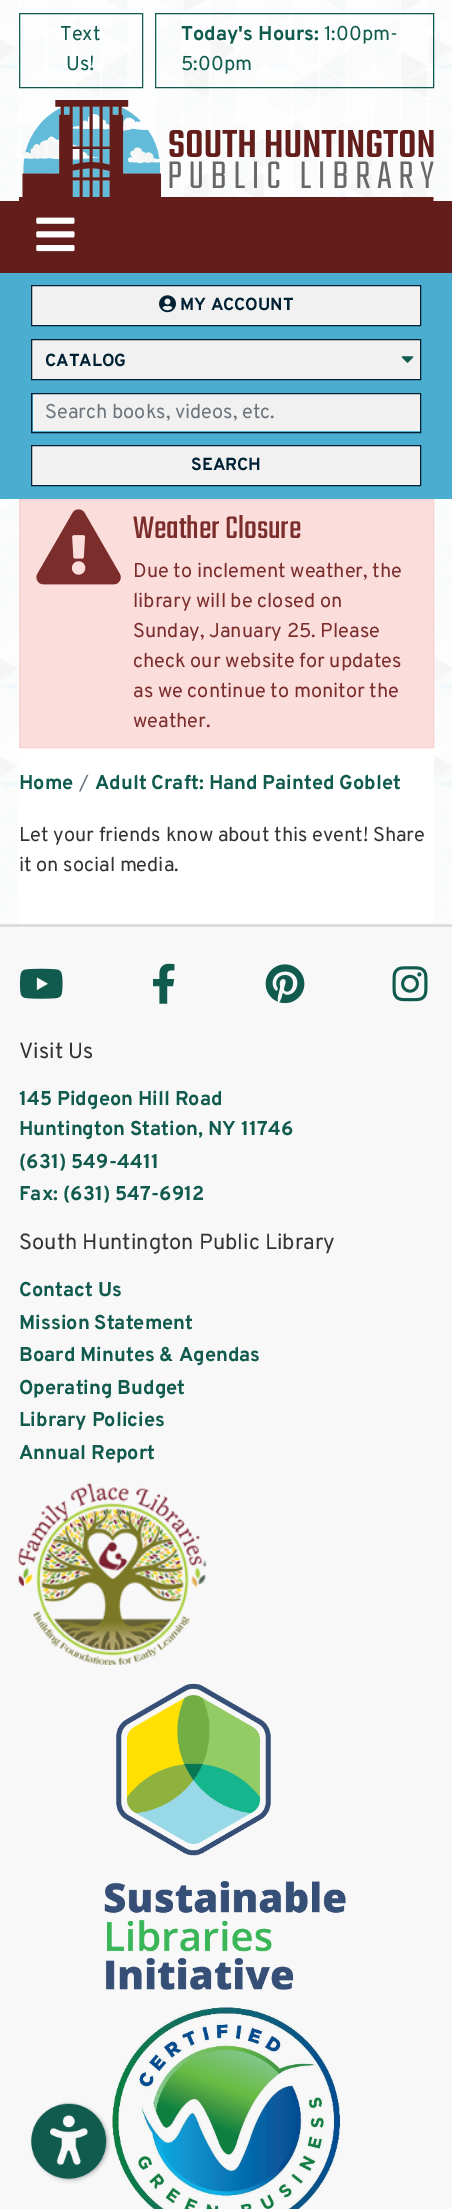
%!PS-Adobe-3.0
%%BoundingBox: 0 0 452 2209
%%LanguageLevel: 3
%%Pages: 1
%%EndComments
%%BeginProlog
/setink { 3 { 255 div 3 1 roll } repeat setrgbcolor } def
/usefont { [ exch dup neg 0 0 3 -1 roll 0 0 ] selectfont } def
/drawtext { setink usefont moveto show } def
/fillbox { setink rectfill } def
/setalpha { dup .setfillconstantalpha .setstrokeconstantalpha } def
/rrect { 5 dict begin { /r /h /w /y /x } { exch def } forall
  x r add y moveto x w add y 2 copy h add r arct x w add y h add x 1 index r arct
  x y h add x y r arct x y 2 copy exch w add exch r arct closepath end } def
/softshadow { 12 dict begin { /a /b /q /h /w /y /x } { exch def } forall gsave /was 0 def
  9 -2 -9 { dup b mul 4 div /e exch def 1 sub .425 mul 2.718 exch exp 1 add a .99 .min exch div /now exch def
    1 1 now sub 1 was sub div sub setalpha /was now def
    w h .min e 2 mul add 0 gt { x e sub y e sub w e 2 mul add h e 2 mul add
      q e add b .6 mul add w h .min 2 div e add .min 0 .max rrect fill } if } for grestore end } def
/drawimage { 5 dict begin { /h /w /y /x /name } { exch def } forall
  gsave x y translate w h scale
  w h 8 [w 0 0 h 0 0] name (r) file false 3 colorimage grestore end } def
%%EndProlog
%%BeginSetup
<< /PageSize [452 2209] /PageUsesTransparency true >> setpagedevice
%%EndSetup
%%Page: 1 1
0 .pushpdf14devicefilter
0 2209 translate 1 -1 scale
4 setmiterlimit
0 0 452 2209 255 255 255 fillbox
(assets/img1.rgb) 0 0 452 924 drawimage
16 90 78 setink
19.5 13.5 123 74 rectstroke
(Text) 60 40 /Overpass-Regular 20 16 90 78 drawtext
(Us!) 66 70 /Overpass-Regular 20 16 90 78 drawtext
155.5 13.5 278 74 rectstroke
(Today's Hours:) 181 40 /Overpass-Bold 20 16 90 78 drawtext
(1:00pm-) 324 40 /Overpass-Regular 20 16 90 78 drawtext
(5:00pm) 181 70 /Overpass-Regular 20 16 90 78 drawtext
(assets/img2.rgb) 19 100 415 101 drawimage
0 201 452 72 99 29 26 fillbox
(assets/img3.rgb) 36 217 39 35 drawimage
0 273 452 226 75 174 208 fillbox
241 241 241 setink
31.5 285.5 moveto 420.5 285.5 lineto 420.5 325.5 lineto 31.5 325.5 lineto closepath gsave fill grestore
0 33 52 setink
stroke
(assets/img4.rgb) 159 295 17 18 drawimage
(MY ACCOUNT) 180 310 /Overpass-Bold 17.5 0 33 52 drawtext
32 340 388 39 241 241 241 fillbox
(assets/img5.rgb) 401 356 13 7 drawimage
0 33 52 setink
31.5 339.5 389 40 rectstroke
(CATALOG) 45 366 /Overpass-Bold 17.5 0 33 52 drawtext
33 394 387 37 241 241 241 fillbox
0 33 52 setink
31.5 393.5 389 39 rectstroke
(Search books, videos, etc.) 45 418 /Overpass-Regular 20 108 117 125 drawtext
241 241 241 setink
31.5 445.5 moveto 420.5 445.5 lineto 420.5 485.5 lineto 31.5 485.5 lineto closepath gsave fill grestore
0 33 52 setink
stroke
(SEARCH) 191 470 /Overpass-Bold 17.5 0 33 52 drawtext
20 748 414 176 255 255 255 fillbox
251 221 220 setink
19.5 499.5 moveto 433.5 499.5 lineto 433.5 747.5 lineto 19.5 747.5 lineto closepath gsave fill grestore
249 208 206 setink
stroke
(assets/img6.rgb) 36 509 85 76 drawimage
(Weather Closure) 133 538 /Teko-Regular 34.5 122 45 42 drawtext
(Due to inclement weather, the) 133 577 /Overpass-Regular 20 122 45 42 drawtext
(library will be closed on) 133 607 /Overpass-Regular 20 122 45 42 drawtext
(Sunday, January 25. Please) 133 637 /Overpass-Regular 20 122 45 42 drawtext
(check our website for updates) 133 667 /Overpass-Regular 20 122 45 42 drawtext
(as we continue to monitor the) 133 697 /Overpass-Regular 20 122 45 42 drawtext
(weather.) 133 727 /Overpass-Regular 20 122 45 42 drawtext
(Home) 19 789 /Overpass-Bold 20 16 90 78 drawtext
(/) 79 789 /Overpass-Regular 20 108 117 125 drawtext
(Adult Craft: Hand Painted Goblet) 95 789 /Overpass-Bold 20 16 90 78 drawtext
(Let your friends know about this event! Share) 19 841 /Overpass-Regular 20 51 51 51 drawtext
(it on social media.) 19 871 /Overpass-Regular 20 51 51 51 drawtext
0 927 452 1282 248 248 248 fillbox
0 924 452 3 221 221 221 fillbox
(assets/img7.rgb) 19 968 44 31 drawimage
(assets/img8.rgb) 153 963 22 41 drawimage
(assets/img9.rgb) 265 964 40 40 drawimage
(assets/img10.rgb) 392 966 36 36 drawimage
(Visit Us) 19 1058 /Overpass-Regular 21.9 51 51 51 drawtext
(145 Pidgeon Hill Road) 19 1105 /Overpass-Bold 20 16 90 78 drawtext
(Huntington Station, NY 11746) 19 1135 /Overpass-Bold 20 16 90 78 drawtext
(\(631\) 549-4411) 19 1168 /Overpass-Bold 20 16 90 78 drawtext
(Fax: \(631\) 547-6912) 19 1200 /Overpass-Bold 20 16 90 78 drawtext
(South Huntington Public Library) 19 1249 /Overpass-Regular 21.9 51 51 51 drawtext
(Contact Us) 19 1296 /Overpass-Bold 20 16 90 78 drawtext
(Mission Statement) 19 1329 /Overpass-Bold 20 16 90 78 drawtext
(Board Minutes & Agendas) 19 1361 /Overpass-Bold 20 16 90 78 drawtext
(Operating Budget) 19 1394 /Overpass-Bold 20 16 90 78 drawtext
(Library Policies) 19 1426 /Overpass-Bold 20 16 90 78 drawtext
(Annual Report) 19 1459 /Overpass-Bold 20 16 90 78 drawtext
(assets/img11.rgb) 18 1483 189 182 drawimage
(assets/img12.rgb) 104 1683 242 307 drawimage
(assets/img13.rgb) 112 2007 228 202 drawimage
gsave
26 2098 moveto 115 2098 lineto 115 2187 lineto 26 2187 lineto closepath 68.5 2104 moveto 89 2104 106 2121 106 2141.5 curveto 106 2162 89 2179 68.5 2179 curveto 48 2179 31 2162 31 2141.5 curveto 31 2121 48 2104 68.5 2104 curveto closepath eoclip newpath
0 0 0 setink
33 2105 75 75 37.5 2 0.25 softshadow
grestore
(assets/img14.rgb) 31 2103 76 76 drawimage
.poppdf14devicefilter showpage
%%EOF
